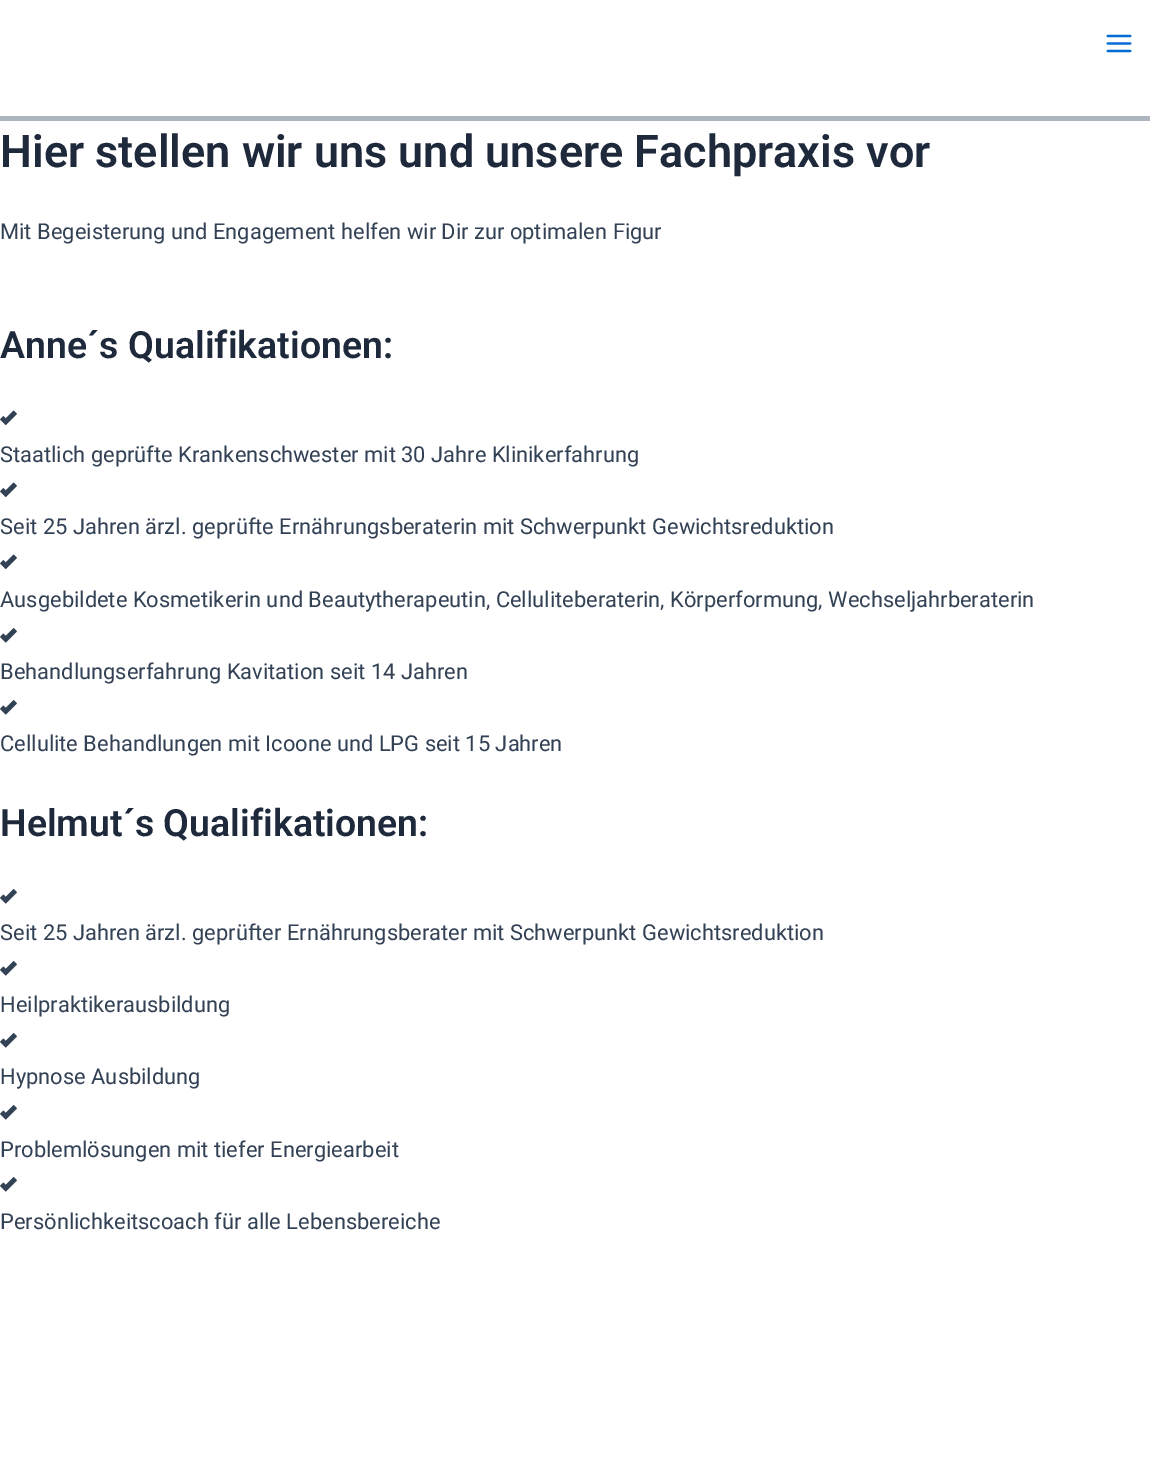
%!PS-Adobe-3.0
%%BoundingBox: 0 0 1150 1482
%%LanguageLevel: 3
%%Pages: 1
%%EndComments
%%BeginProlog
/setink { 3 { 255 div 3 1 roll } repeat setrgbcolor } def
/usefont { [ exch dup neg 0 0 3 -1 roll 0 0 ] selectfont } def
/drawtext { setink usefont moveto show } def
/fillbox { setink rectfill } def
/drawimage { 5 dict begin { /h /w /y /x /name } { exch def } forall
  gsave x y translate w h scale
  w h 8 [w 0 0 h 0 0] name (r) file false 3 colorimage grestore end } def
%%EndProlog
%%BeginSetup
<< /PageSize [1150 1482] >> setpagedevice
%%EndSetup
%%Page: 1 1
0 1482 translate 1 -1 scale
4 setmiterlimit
0 0 1150 1482 255 255 255 fillbox
0 116 1150 5 173 182 190 fillbox
(assets/img1.rgb) 1106 34 26 19 drawimage
(Hier stellen wir uns und unsere Fachpraxis vor) 0 167 /Roboto-SemiBold 45 30 41 59 drawtext
(Mit Begeisterung und Engagement helfen wir Dir zur optimalen Figur) 0 239 /Roboto-Regular 21.9 51 65 85 drawtext
(Anne´s Qualifikationen:) 0 358 /Roboto-SemiBold 37.5 30 41 59 drawtext
(assets/img2.rgb) 0 410 17 16 drawimage
(Staatlich geprüfte Krankenschwester mit 30 Jahre Klinikerfahrung) 0 462 /Roboto-Regular 21.9 51 65 85 drawtext
(assets/img2.rgb) 0 482 17 16 drawimage
(Seit 25 Jahren ärzl. geprüfte Ernährungsberaterin mit Schwerpunkt Gewichtsreduktion) 0 534 /Roboto-Regular 21.9 51 65 85 drawtext
(assets/img2.rgb) 0 554 17 16 drawimage
(Ausgebildete Kosmetikerin und Beautytherapeutin, Celluliteberaterin, Körperformung, Wechseljahrberaterin) 0 607 /Roboto-Regular 21.9 51 65 85 drawtext
(assets/img3.rgb) 0 628 17 15 drawimage
(Behandlungserfahrung Kavitation seit 14 Jahren) 0 679 /Roboto-Regular 21.9 51 65 85 drawtext
(assets/img3.rgb) 0 700 17 15 drawimage
(Cellulite Behandlungen mit Icoone und LPG seit 15 Jahren) 0 751 /Roboto-Regular 21.9 51 65 85 drawtext
(Helmut´s Qualifikationen:) 0 836 /Roboto-SemiBold 37.5 30 41 59 drawtext
(assets/img3.rgb) 0 889 17 15 drawimage
(Seit 25 Jahren ärzl. geprüfter Ernährungsberater mit Schwerpunkt Gewichtsreduktion) 0 940 /Roboto-Regular 21.9 51 65 85 drawtext
(assets/img3.rgb) 0 961 17 15 drawimage
(Heilpraktikerausbildung) 0 1012 /Roboto-Regular 21.9 51 65 85 drawtext
(assets/img3.rgb) 0 1033 17 15 drawimage
(Hypnose Ausbildung) 0 1084 /Roboto-Regular 21.9 51 65 85 drawtext
(assets/img3.rgb) 0 1105 17 15 drawimage
(Problemlösungen mit tiefer Energiearbeit) 0 1157 /Roboto-Regular 21.9 51 65 85 drawtext
(assets/img3.rgb) 0 1177 17 15 drawimage
(Persönlichkeitscoach für alle Lebensbereiche) 0 1229 /Roboto-Regular 21.9 51 65 85 drawtext
showpage
%%EOF
